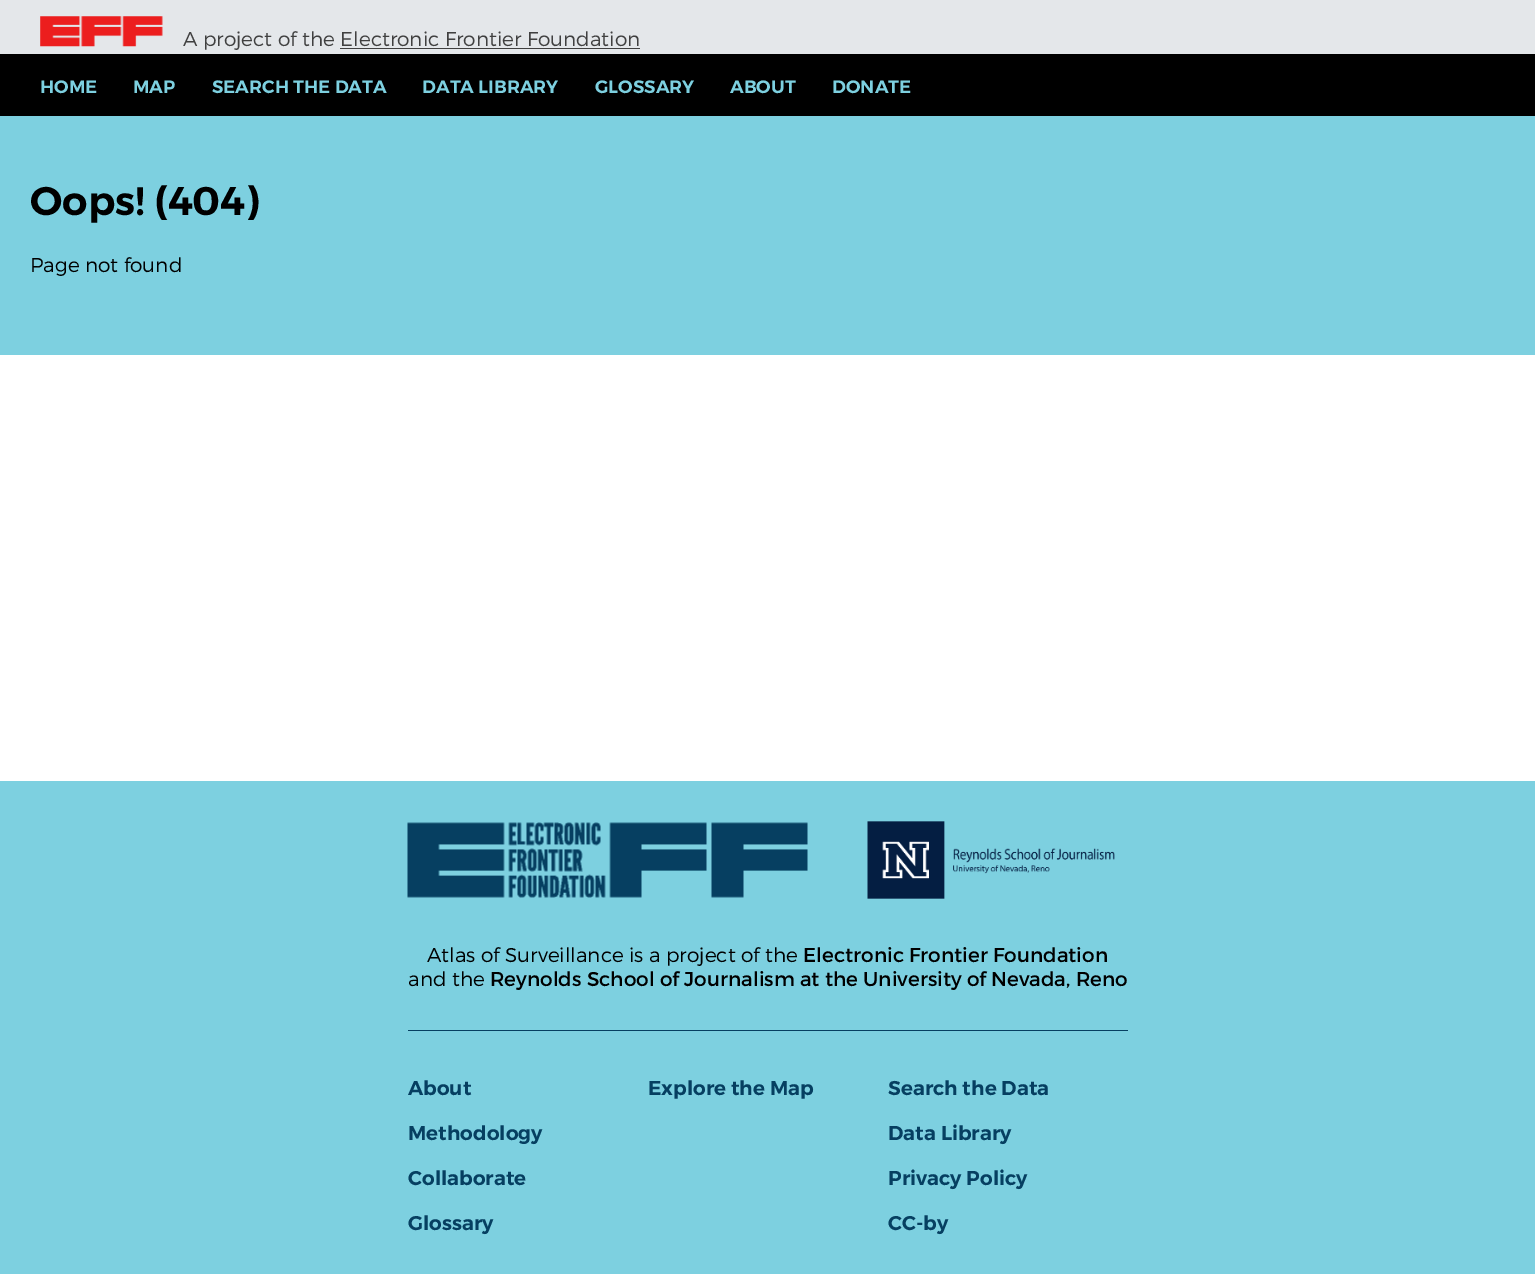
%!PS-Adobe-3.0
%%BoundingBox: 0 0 1535 1274
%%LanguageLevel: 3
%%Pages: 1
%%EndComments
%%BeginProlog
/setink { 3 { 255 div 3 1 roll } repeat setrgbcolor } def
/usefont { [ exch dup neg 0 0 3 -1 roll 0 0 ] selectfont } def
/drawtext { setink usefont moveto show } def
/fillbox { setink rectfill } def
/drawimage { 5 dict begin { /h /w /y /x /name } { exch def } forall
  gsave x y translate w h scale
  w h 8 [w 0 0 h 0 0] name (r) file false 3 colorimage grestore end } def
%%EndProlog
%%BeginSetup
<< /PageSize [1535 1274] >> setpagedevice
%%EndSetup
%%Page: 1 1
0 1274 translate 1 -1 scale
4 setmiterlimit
0 0 1535 1274 255 255 255 fillbox
0 0 1535 54 228 231 234 fillbox
(assets/img1.rgb) 40 16 123 31 drawimage
(A project of the Electronic Frontier Foundation) 183 46 /Montserrat-Light 20 64 64 64 drawtext
340 48 300 1 64 64 64 fillbox
0 54 1535 62 0 0 0 fillbox
(HOME) 40 93 /Montserrat-SemiBold 18 125 208 224 drawtext
(MAP) 133 93 /Montserrat-SemiBold 18 125 208 224 drawtext
(SEARCH THE DATA) 212 93 /Montserrat-SemiBold 18 125 208 224 drawtext
(DATA LIBRARY) 422 93 /Montserrat-SemiBold 18 125 208 224 drawtext
(GLOSSARY) 595 93 /Montserrat-SemiBold 18 125 208 224 drawtext
(ABOUT) 730 93 /Montserrat-SemiBold 18 125 208 224 drawtext
(DONATE) 832 93 /Montserrat-SemiBold 18 125 208 224 drawtext
0 116 1535 239 125 208 224 fillbox
(Oops! \(404\)) 30 215 /Montserrat-SemiBold 40 0 0 0 drawtext
(Page not found) 30 272 /Montserrat-Light 20 0 0 0 drawtext
0 781 1535 493 125 208 224 fillbox
(assets/img2.rgb) 407 822 401 76 drawimage
(assets/img3.rgb) 867 821 248 78 drawimage
(Atlas of Surveillance is a project of the) 427 962 /Montserrat-Light 20 0 0 0 drawtext
(Electronic Frontier Foundation) 803 962 /Montserrat-Regular 20 0 0 0 drawtext
(and the) 408 986 /Montserrat-Light 20 0 0 0 drawtext
(Reynolds School of Journalism at the University of Nevada, Reno) 490 986 /Montserrat-Regular 20 0 0 0 drawtext
408 1030 720 1 6 63 97 fillbox
(About) 408 1095 /Montserrat-SemiBold 20 6 63 97 drawtext
(Methodology) 408 1140 /Montserrat-SemiBold 20 6 63 97 drawtext
(Collaborate) 408 1185 /Montserrat-SemiBold 20 6 63 97 drawtext
(Glossary) 408 1230 /Montserrat-SemiBold 20 6 63 97 drawtext
(Explore the Map) 648 1095 /Montserrat-SemiBold 20 6 63 97 drawtext
(Search the Data) 888 1095 /Montserrat-SemiBold 20 6 63 97 drawtext
(Data Library) 888 1140 /Montserrat-SemiBold 20 6 63 97 drawtext
(Privacy Policy) 888 1185 /Montserrat-SemiBold 20 6 63 97 drawtext
(CC-by) 888 1230 /Montserrat-SemiBold 20 6 63 97 drawtext
showpage
%%EOF
